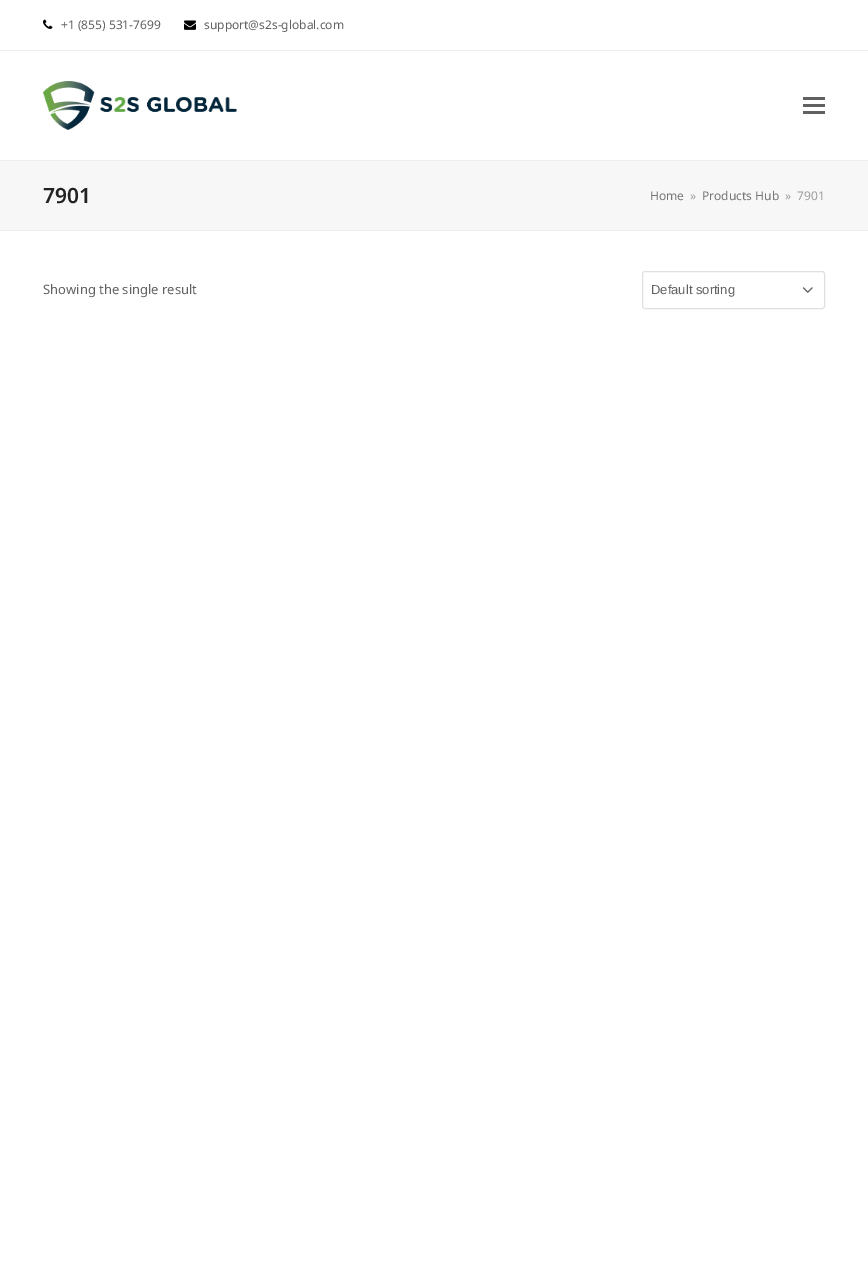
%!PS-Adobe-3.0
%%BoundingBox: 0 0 868 1262
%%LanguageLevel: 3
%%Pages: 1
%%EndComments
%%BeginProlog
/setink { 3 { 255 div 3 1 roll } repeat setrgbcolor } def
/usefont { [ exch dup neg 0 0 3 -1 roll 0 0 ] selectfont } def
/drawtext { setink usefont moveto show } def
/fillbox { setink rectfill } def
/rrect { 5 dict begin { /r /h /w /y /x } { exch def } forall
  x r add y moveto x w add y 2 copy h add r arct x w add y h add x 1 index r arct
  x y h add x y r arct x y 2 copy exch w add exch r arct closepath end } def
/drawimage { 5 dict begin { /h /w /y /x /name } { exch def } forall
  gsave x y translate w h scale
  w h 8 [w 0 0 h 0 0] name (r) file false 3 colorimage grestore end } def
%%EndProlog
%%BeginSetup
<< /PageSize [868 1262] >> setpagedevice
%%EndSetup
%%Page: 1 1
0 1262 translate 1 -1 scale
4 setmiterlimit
0 0 868 1262 255 255 255 fillbox
0 50 868 1 238 238 238 fillbox
(assets/img1.rgb) 43 19 10 10 drawimage
(+1 \(855\) 531-7699) 61 29 /NotoSans-Regular 12 97 97 97 drawtext
(assets/img2.rgb) 184 20 12 10 drawimage
(support@s2s-global.com) 204 29 /NotoSans-Regular 12 97 97 97 drawtext
(assets/img3.rgb) 43 81 195 49 drawimage
803 104 22 3 97 97 97 fillbox
803 97 22 3 97 97 97 fillbox
803 111 22 3 97 97 97 fillbox
0 161 868 69 247 247 247 fillbox
0 160 868 1 238 238 238 fillbox
0 230 868 1 238 238 238 fillbox
(7901) 43 203 /NotoSans-SemiBold 21 34 34 34 drawtext
(Home) 650 200 /NotoSans-Regular 12 117 117 117 drawtext
(») 690 200 /NotoSans-Regular 12 158 158 158 drawtext
(Products Hub) 702 200 /NotoSans-Regular 12 117 117 117 drawtext
(») 785 200 /NotoSans-Regular 12 158 158 158 drawtext
(7901) 797 200 /NotoSans-Regular 12 158 158 158 drawtext
(Showing the single result) 43 294 /NotoSans-Regular 13 97 97 97 drawtext
224 224 224 setink
642.5 271.5 182 37 2.5 rrect stroke
(Default sorting) 651 294 /LiberationSans-Regular 13 97 97 97 drawtext
(assets/img4.rgb) 802 287 11 6 drawimage
showpage
%%EOF
